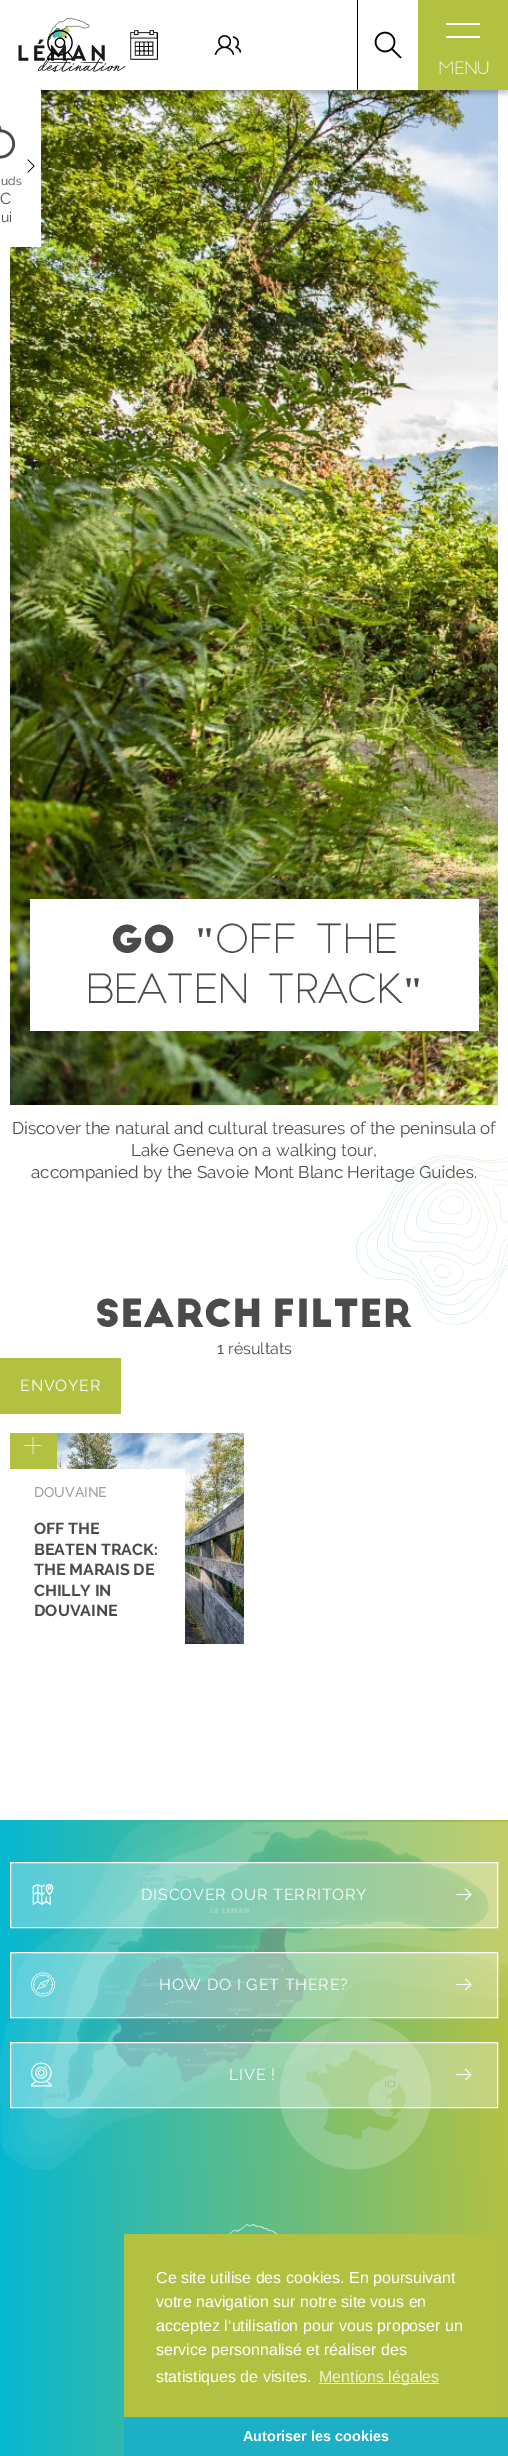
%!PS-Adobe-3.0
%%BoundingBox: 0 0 508 2456
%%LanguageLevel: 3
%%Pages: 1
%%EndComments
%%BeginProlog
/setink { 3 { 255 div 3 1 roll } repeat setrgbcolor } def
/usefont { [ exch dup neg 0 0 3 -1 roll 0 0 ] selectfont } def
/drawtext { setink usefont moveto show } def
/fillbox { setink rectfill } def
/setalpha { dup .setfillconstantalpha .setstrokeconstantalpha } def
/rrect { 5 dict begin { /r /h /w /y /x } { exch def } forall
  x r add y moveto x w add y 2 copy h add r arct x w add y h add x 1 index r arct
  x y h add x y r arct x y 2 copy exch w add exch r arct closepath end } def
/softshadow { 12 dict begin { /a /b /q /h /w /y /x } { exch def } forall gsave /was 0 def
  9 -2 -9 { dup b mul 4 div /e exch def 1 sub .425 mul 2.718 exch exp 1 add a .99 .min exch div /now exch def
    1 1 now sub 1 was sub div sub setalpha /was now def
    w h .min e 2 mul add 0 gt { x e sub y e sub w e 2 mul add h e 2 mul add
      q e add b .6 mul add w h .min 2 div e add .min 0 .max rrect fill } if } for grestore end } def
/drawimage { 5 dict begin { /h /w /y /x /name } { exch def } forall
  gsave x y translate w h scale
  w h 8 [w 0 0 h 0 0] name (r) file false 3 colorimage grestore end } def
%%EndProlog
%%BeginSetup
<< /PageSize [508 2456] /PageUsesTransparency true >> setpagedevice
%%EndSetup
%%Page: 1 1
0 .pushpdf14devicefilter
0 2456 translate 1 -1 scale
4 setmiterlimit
0 0 508 2456 255 255 255 fillbox
(assets/img8.rgb) 10 90 488 1015 drawimage
0 0 0 setink
0 4 508 90 0 2 0.2 softshadow
0 1 418 89 255 255 255 fillbox
(assets/img1.rgb) 18 17 108 55 drawimage
418 0 90 90 179 193 66 fillbox
446 23 34 2 255 255 255 fillbox
446 36 34 2 255 255 255 fillbox
(MENU) 438 74 /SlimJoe-Bold 16 255 255 255 drawtext
0.1 setalpha
18 18 108 54 255 255 255 fillbox
1 setalpha
(assets/img2.rgb) 47 29 26 31 drawimage
(assets/img3.rgb) 130 30 28 30 drawimage
(assets/img4.rgb) 214 35 28 20 drawimage
357 0 1 90 0 0 0 fillbox
(assets/img5.rgb) 374 31 28 28 drawimage
0 90 41 157 255 255 255 fillbox
(assets/img6.rgb) 27 159 8 14 drawimage
(assets/img7.rgb) 0 125 16 34 drawimage
(uds) 1 185 /Raleway-Regular 12 74 74 74 drawtext
(C) 0 204 /Raleway-Regular 16 74 74 74 drawtext
(ui) 1 222 /Raleway-Regular 14 74 74 74 drawtext
30 899 449 132 255 255 255 fillbox
(GO) 111 953 /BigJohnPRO-Bold 38 74 74 74 drawtext
(") 194 953 /LiberationSerif-Bold 38 74 74 74 drawtext
(OFF THE) 215 953 /SlimJoe-Bold 38 74 74 74 drawtext
(BEATEN TRACK) 85 1003 /SlimJoe-Bold 38 74 74 74 drawtext
(") 402 1003 /LiberationSerif-Bold 38 74 74 74 drawtext
(Discover the natural and cultural treasures of the peninsula of) 12 1134 /Raleway-Regular 17 74 74 74 drawtext
(Lake Geneva on a walking tour,) 131 1156 /Raleway-Regular 17 74 74 74 drawtext
(accompanied by the Savoie Mont Blanc Heritage Guides.) 31 1178 /Raleway-Regular 17 74 74 74 drawtext
(SEARCH FILTER) 96 1327 /BigJohnPRO-Bold 38 74 74 74 drawtext
(assets/img9.rgb) 356 1155 152 170 drawimage
(1 résultats) 217 1354 /Raleway-Regular 16 74 74 74 drawtext
0 1358 121 56 179 193 66 fillbox
255 255 255 setink
20 1391 moveto 0.8 0 (ENVOYER) ashow
(assets/img10.rgb) 57 1433 187 211 drawimage
10 1433 47 36 179 193 66 fillbox
(assets/img11.rgb) 24 1437 18 17 drawimage
57 1469 128 175 255 255 255 fillbox
(DOUVAINE) 34 1497 /Raleway-Medium 14 155 155 155 drawtext
(OFF THE) 34 1534 /Raleway-Bold 16 74 74 74 drawtext
(BEATEN TRACK:) 34 1555 /Raleway-Bold 16 74 74 74 drawtext
(THE MARAIS DE) 34 1575 /Raleway-Bold 16 74 74 74 drawtext
(CHILLY IN) 34 1596 /Raleway-Bold 16 74 74 74 drawtext
(DOUVAINE) 34 1616 /Raleway-Bold 16 74 74 74 drawtext
gsave 0 1820 moveto 508 1820 lineto 508 2456 lineto 0 2456 lineto closepath clip newpath
<< /ShadingType 2 /ColorSpace /DeviceRGB /Coords [0 2347 508 2347] /Extend [true true] /Function << /FunctionType 2 /Domain [0 1] /C0 [0.024 0.718 0.82] /C1 [0.702 0.757 0.259] /N 1 >> >> shfill grestore
(assets/img12.rgb) 0 1822 508 348 drawimage
(assets/img13.rgb) 279 2018 153 152 drawimage
0.3 setalpha
255 255 255 setink
10.5 1862.5 moveto 497.5 1862.5 lineto 497.5 1927.5 lineto 10.5 1927.5 lineto closepath fill
1 setalpha
10.5 1862.5 moveto 497.5 1862.5 lineto 497.5 1927.5 lineto 10.5 1927.5 lineto closepath stroke
(assets/img14.rgb) 32 1884 22 21 drawimage
/Raleway-Regular 16 usefont
141 1900 moveto 0.8 0 (DISCOVER OUR TERRITORY) ashow
(assets/img15.rgb) 456 1888 16 13 drawimage
0.3 setalpha
10.5 1952.5 moveto 497.5 1952.5 lineto 497.5 2017.5 lineto 10.5 2017.5 lineto closepath fill
1 setalpha
10.5 1952.5 moveto 497.5 1952.5 lineto 497.5 2017.5 lineto 10.5 2017.5 lineto closepath stroke
(assets/img16.rgb) 31 1972 24 25 drawimage
159 1990 moveto 0.8 0 (HOW DO I GET THERE?) ashow
(assets/img17.rgb) 456 1978 16 13 drawimage
0.3 setalpha
10.5 2042.5 moveto 497.5 2042.5 lineto 497.5 2107.5 lineto 10.5 2107.5 lineto closepath fill
1 setalpha
10.5 2042.5 moveto 497.5 2042.5 lineto 497.5 2107.5 lineto 10.5 2107.5 lineto closepath stroke
(assets/img18.rgb) 31 2062 21 25 drawimage
229 2080 moveto 0.8 0 (LIVE !) ashow
(assets/img19.rgb) 456 2068 16 13 drawimage
(assets/img20.rgb) 229 2224 50 10 drawimage
124 2234 377 183 179 193 66 fillbox
(Ce site utilise des cookies. En poursuivant) 156 2283 /LiberationSans-Regular 16 255 255 255 drawtext
(votre navigation sur notre site vous en) 156 2307 /LiberationSans-Regular 16 255 255 255 drawtext
(acceptez l‘utilisation pour vous proposer un) 156 2331 /LiberationSans-Regular 16 255 255 255 drawtext
(service personnalisé et réaliser des) 156 2355 /LiberationSans-Regular 16 255 255 255 drawtext
(statistiques de visites.) 156 2382 /LiberationSans-Regular 16 255 255 255 drawtext
319 2383 120 1 240 243 217 fillbox
(Mentions légales) 319 2382 /LiberationSans-Regular 16 240 243 217 drawtext
124 2417 384 39 28 175 197 fillbox
(Autoriser les cookies) 243 2441 /LiberationSans-Bold 14.4 255 255 255 drawtext
.poppdf14devicefilter showpage
%%EOF
